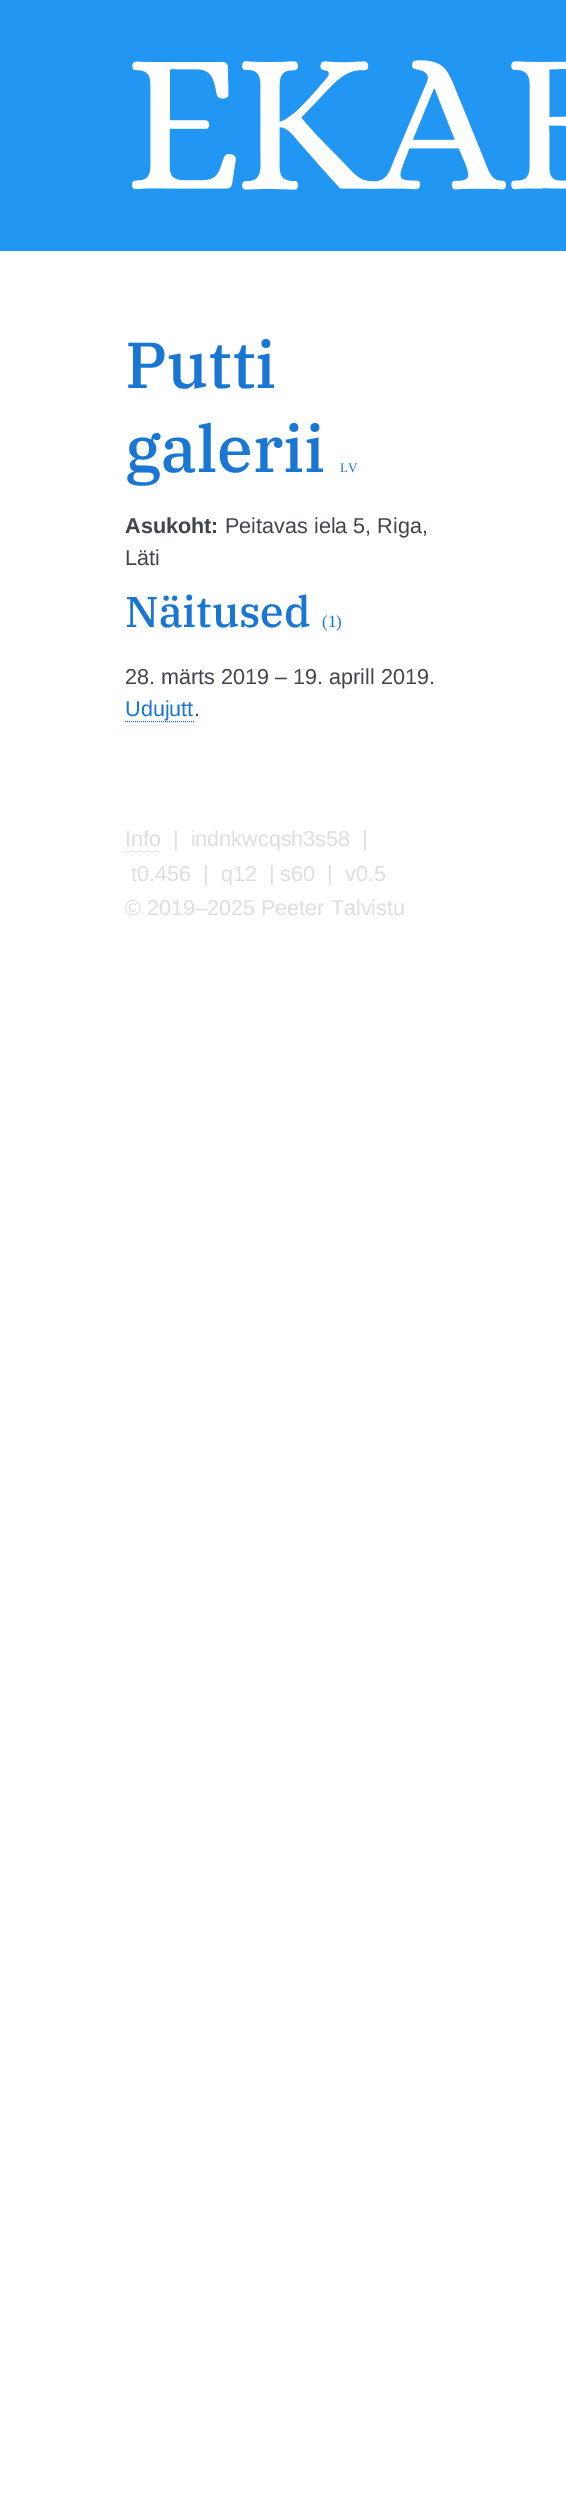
%!PS-Adobe-3.0
%%BoundingBox: 0 0 566 2507
%%LanguageLevel: 3
%%Pages: 1
%%EndComments
%%BeginProlog
/setink { 3 { 255 div 3 1 roll } repeat setrgbcolor } def
/usefont { [ exch dup neg 0 0 3 -1 roll 0 0 ] selectfont } def
/drawtext { setink usefont moveto show } def
/fillbox { setink rectfill } def
/drawimage { 5 dict begin { /h /w /y /x /name } { exch def } forall
  gsave x y translate w h scale
  w h 8 [w 0 0 h 0 0] name (r) file false 3 colorimage grestore end } def
%%EndProlog
%%BeginSetup
<< /PageSize [566 2507] >> setpagedevice
%%EndSetup
%%Page: 1 1
0 2507 translate 1 -1 scale
4 setmiterlimit
0 0 566 2507 255 255 255 fillbox
0 0 566 251 33 150 243 fillbox
(assets/img1.rgb) 132 60 434 130 drawimage
(Putti) 125 388 /IBMPlexSerif-Medium 65 25 118 210 drawtext
(galerii) 125 472 /IBMPlexSerif-Medium 65 25 118 210 drawtext
(LV) 340 472 /LiberationSerif-Regular 13 25 118 210 drawtext
(Asukoht:) 125 533 /LiberationSans-Bold 21.6 64 68 76 drawtext
(Peitavas iela 5, Riga,) 225 533 /LiberationSans-Regular 21.6 64 68 76 drawtext
(Läti) 125 565 /LiberationSans-Regular 21.6 64 68 76 drawtext
(Näitused) 125 627 /IBMPlexSerif-Medium 43 25 118 210 drawtext
(\(1\)) 322 627 /LiberationSerif-Regular 17 25 118 210 drawtext
(28. märts 2019 – 19. aprill 2019.) 125 684 /LiberationSans-Regular 21.6 64 68 76 drawtext
(Udujutt) 125 716 /LiberationSans-Regular 21.6 25 118 210 drawtext
[1 1] 0 setdash
125 721.5 moveto 194 721.5 lineto stroke
(.) 194 716 /LiberationSans-Regular 21.6 64 68 76 drawtext
(Info) 125 846 /LiberationSans-Regular 21.6 222 222 222 drawtext
125 851.5 moveto 161 851.5 lineto stroke
(|  indnkwcqsh3s58  |) 173 846 /LiberationSans-Regular 21.6 222 222 222 drawtext
(t0.456  |  q12  | s60  |  v0.5) 131 881 /LiberationSans-Regular 21.6 222 222 222 drawtext
(© 2019–2025 Peeter Talvistu) 125 915 /LiberationSans-Regular 21.6 222 222 222 drawtext
showpage
%%EOF
